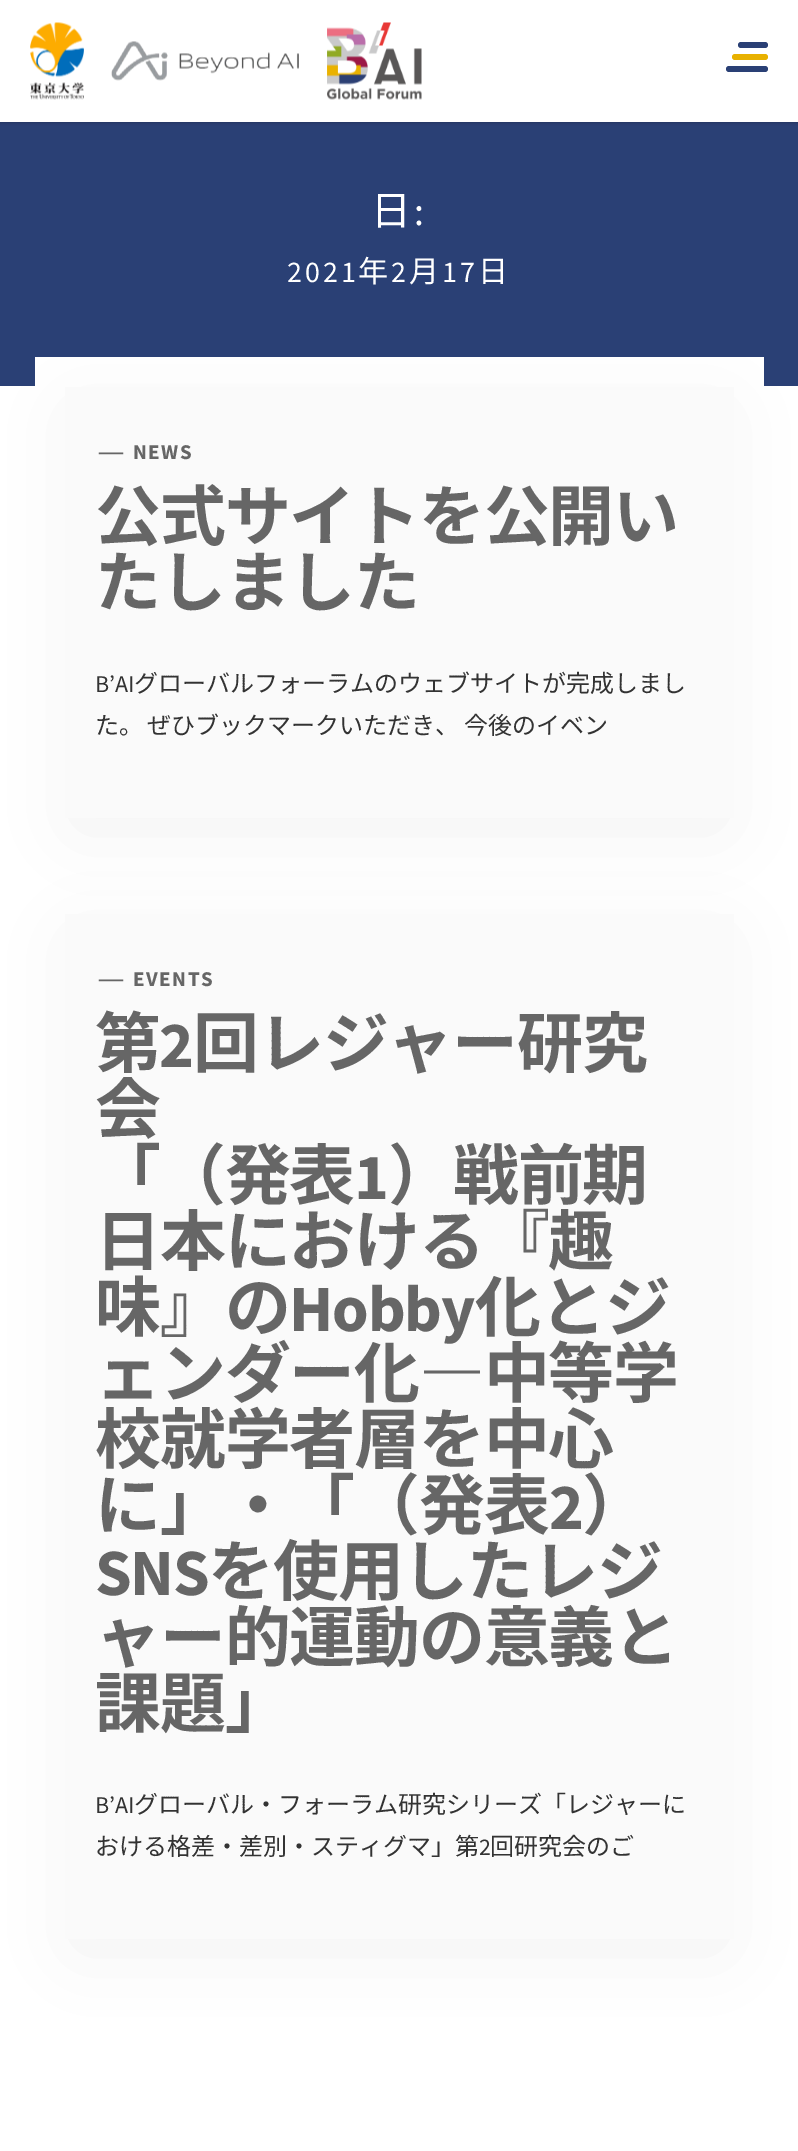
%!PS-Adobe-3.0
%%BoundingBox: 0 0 798 2151
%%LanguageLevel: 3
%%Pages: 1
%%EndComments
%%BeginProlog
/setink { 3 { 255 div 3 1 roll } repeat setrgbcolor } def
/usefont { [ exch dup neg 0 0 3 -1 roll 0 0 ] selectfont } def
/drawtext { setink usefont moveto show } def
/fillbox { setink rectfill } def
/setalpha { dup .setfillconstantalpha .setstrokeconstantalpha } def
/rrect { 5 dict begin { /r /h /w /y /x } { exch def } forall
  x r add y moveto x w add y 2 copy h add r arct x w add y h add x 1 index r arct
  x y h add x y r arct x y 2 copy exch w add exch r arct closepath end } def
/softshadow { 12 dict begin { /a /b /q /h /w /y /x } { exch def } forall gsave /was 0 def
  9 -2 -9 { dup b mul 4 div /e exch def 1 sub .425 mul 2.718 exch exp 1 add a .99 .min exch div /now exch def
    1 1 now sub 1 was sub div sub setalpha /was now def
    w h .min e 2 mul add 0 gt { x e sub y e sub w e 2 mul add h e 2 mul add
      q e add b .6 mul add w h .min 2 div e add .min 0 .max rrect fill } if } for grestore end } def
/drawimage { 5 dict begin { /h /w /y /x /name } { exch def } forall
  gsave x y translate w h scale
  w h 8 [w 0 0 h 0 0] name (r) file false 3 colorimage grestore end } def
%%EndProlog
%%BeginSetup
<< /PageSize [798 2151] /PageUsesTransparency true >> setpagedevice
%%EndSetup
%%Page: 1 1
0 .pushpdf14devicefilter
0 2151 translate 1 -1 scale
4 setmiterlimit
0 0 798 2151 255 255 255 fillbox
0 122 798 264 42 64 117 fillbox
0 0 0 setink
0 0 798 122 0 2 0.3 softshadow
0 0 798 122 255 255 255 fillbox
(assets/img1.rgb) 30 22 54 78 drawimage
(assets/img2.rgb) 111 41 188 40 drawimage
(assets/img3.rgb) 327 22 95 78 drawimage
232 177 0 setink
732 54 36 6 3 rrect fill
42 64 117 setink
738 42 30 6 3 rrect fill
726 66 42 6 3 rrect fill
/NotoSansJP-Regular 40 usefont
255 255 255 setink
371 225 moveto 3 0 (日) ashow
/SourceSansPro-Regular 40 usefont
414 225 moveto 3 0 (:) ashow
/SourceSansPro-Regular 30 usefont
287 282 moveto 3 0 (2021) ashow
/NotoSansJP-Regular 30 usefont
358 282 moveto 3 0 (年) ashow
/SourceSansPro-Regular 30 usefont
391 282 moveto 3 0 (2) ashow
/NotoSansJP-Regular 30 usefont
409 282 moveto 3 0 (月) ashow
/SourceSansPro-Regular 30 usefont
442 282 moveto 3 0 (17) ashow
/NotoSansJP-Regular 30 usefont
478 282 moveto 3 0 (日) ashow
35 357 729 29 255 255 255 fillbox
0 0 0 setink
75 413 648 415 0 39 0.05 softshadow
65 387 669 431 250 250 250 fillbox
(—) 99 459 /LiberationSerif-Bold 24 102 102 102 drawtext
/SourceSansPro-Bold 21 usefont
133 459 moveto 1.5 0 (NEWS) ashow
/NotoSansJP-Bold 66 usefont
95 540 moveto -1.25 0 (公式サイトを公開い) ashow
95 606 moveto -1.25 0 (たしました) ashow
(B’AI) 95 692 /SourceSansPro-Regular 24 51 51 51 drawtext
(グローバルフォーラムのウェブサイトが完成しまし) 134 692 /NotoSansJP-Regular 24 51 51 51 drawtext
95 734 moveto -1 0 32 (た。 ぜひブックマークいただき、 今後のイベン) widthshow
0 0 0 setink
75 939 648 1010 0 39 0.05 softshadow
65 914 669 1025 250 250 250 fillbox
(—) 99 986 /LiberationSerif-Bold 24 102 102 102 drawtext
/SourceSansPro-Bold 21 usefont
133 986 moveto 1.5 0 (EVENTS) ashow
/NotoSansJP-Bold 66 usefont
95 1067 moveto -1.25 0 (第) ashow
/SourceSansPro-Bold 66 usefont
159 1067 moveto -1.25 0 (2) ashow
/NotoSansJP-Bold 66 usefont
193 1067 moveto -1.25 0 (回レジャー研究) ashow
95 1133 moveto -1.25 0 (会) ashow
95 1199 moveto -1.25 0 (「（発表) ashow
/SourceSansPro-Bold 66 usefont
354 1199 moveto -1.25 0 (1) ashow
/NotoSansJP-Bold 66 usefont
388 1199 moveto -1.25 0 (）戦前期) ashow
95 1265 moveto -1.25 0 (日本における『趣) ashow
95 1331 moveto -1.25 0 (味』の) ashow
/SourceSansPro-Bold 66 usefont
289 1331 moveto -1.25 0 (Hobby) ashow
/NotoSansJP-Bold 66 usefont
475 1331 moveto -1.25 0 (化とジ) ashow
95 1397 moveto -1.25 0 (ェンダー化―中等学) ashow
95 1463 moveto -1.25 0 (校就学者層を中心) ashow
95 1529 moveto -1.25 0 (に」・「（発表) ashow
/SourceSansPro-Bold 66 usefont
549 1529 moveto -1.25 0 (2) ashow
/NotoSansJP-Bold 66 usefont
582 1529 moveto -1.25 0 (）) ashow
/SourceSansPro-Bold 66 usefont
95 1595 moveto -1.25 0 (SNS) ashow
/NotoSansJP-Bold 66 usefont
208 1595 moveto -1.25 0 (を使用したレジ) ashow
95 1661 moveto -1.25 0 (ャー的運動の意義と) ashow
95 1727 moveto -1.25 0 (課題」) ashow
(B’AI) 95 1813 /SourceSansPro-Regular 24 51 51 51 drawtext
(グローバル・フォーラム研究シリーズ「レジャーに) 134 1813 /NotoSansJP-Regular 24 51 51 51 drawtext
(おける格差・差別・スティグマ」第) 95 1855 /NotoSansJP-Regular 24 51 51 51 drawtext
(2) 479 1855 /SourceSansPro-Regular 24 51 51 51 drawtext
(回研究会のご) 490 1855 /NotoSansJP-Regular 24 51 51 51 drawtext
.poppdf14devicefilter showpage
%%EOF
